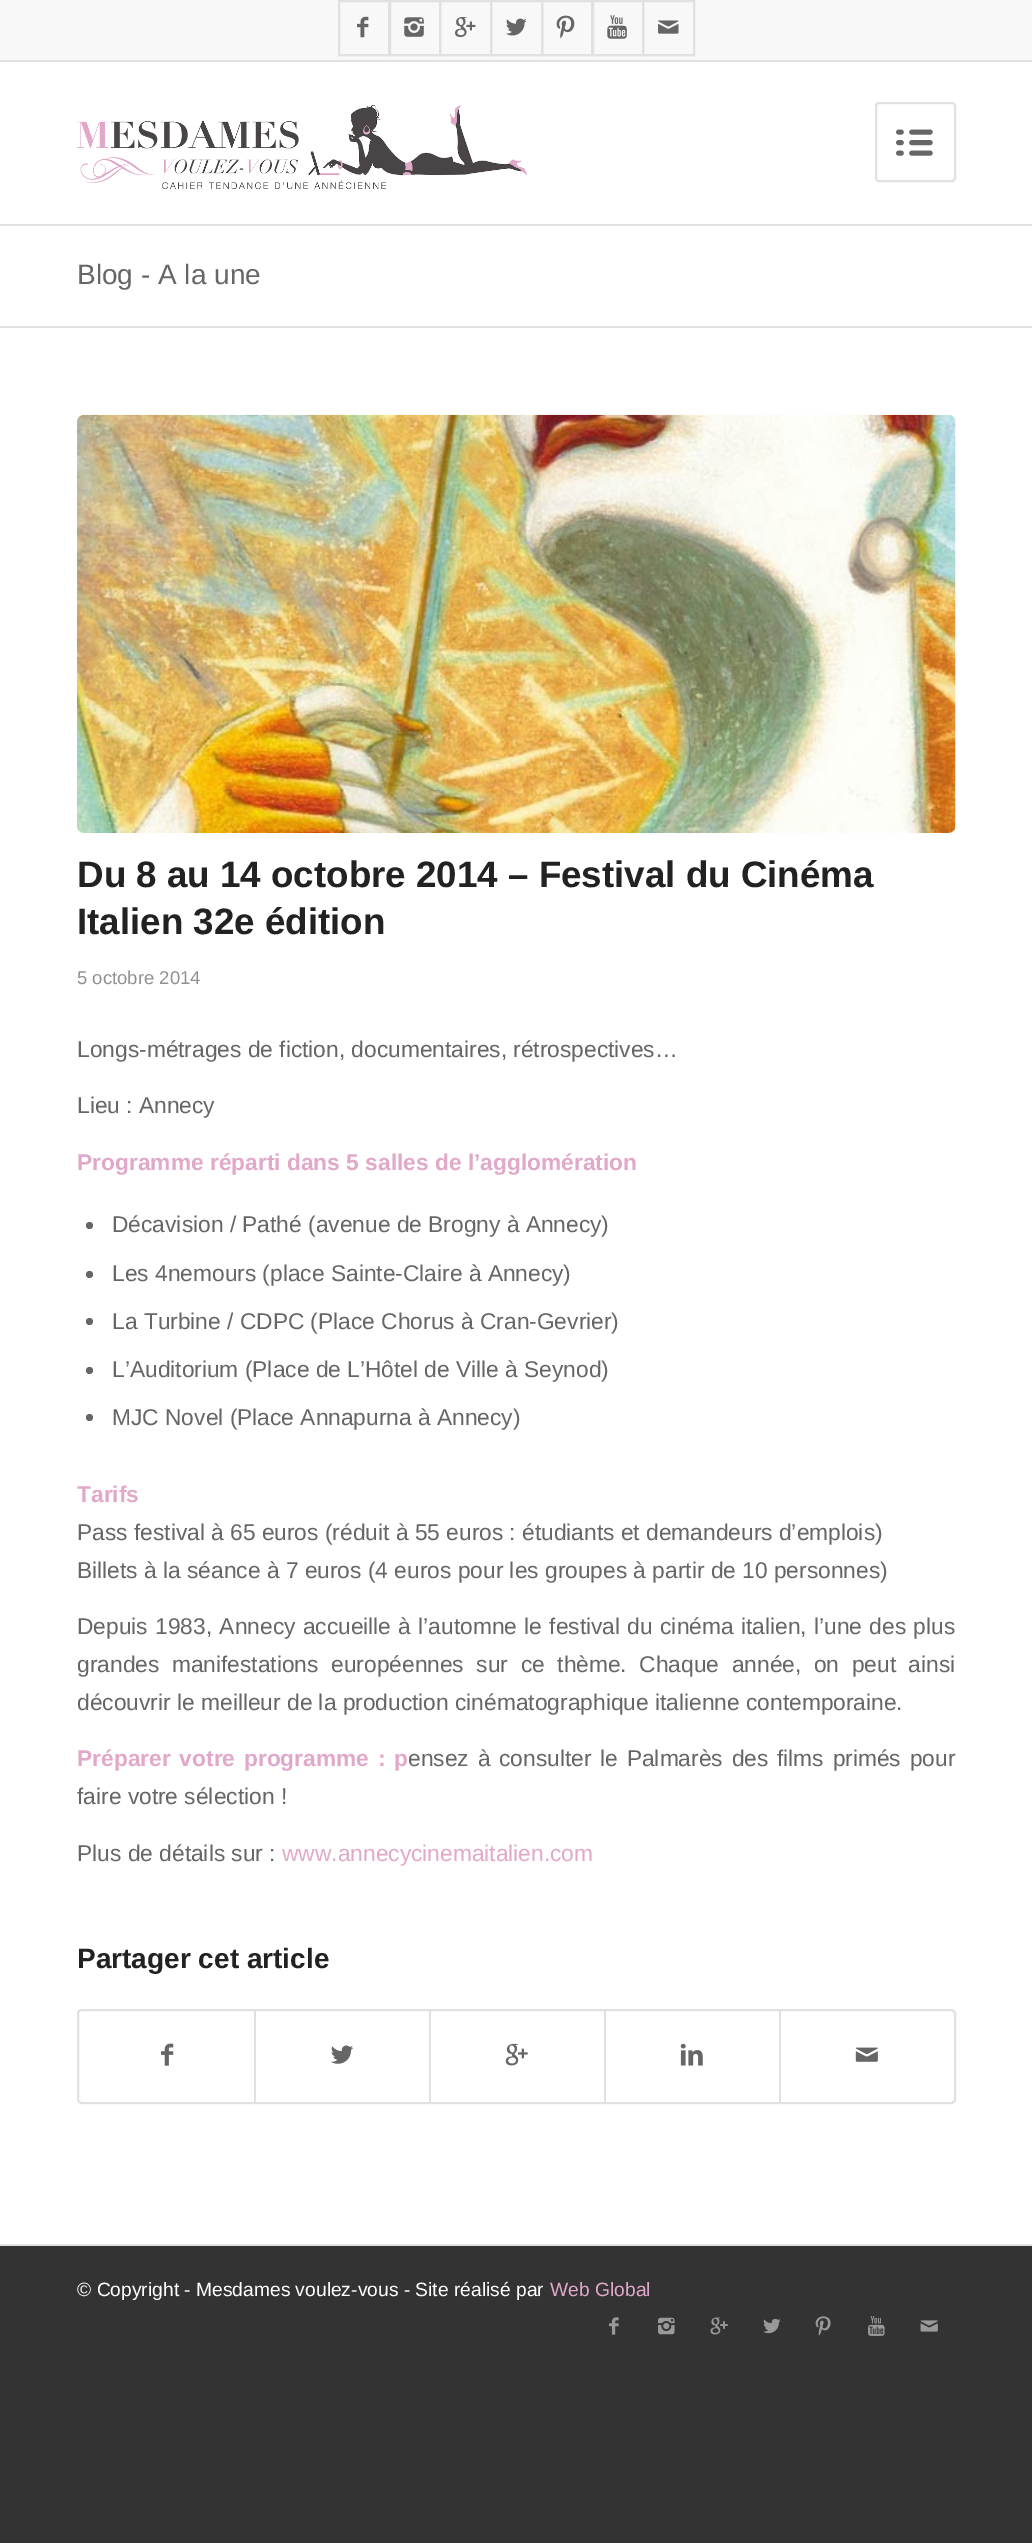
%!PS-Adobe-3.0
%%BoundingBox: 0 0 1032 2543
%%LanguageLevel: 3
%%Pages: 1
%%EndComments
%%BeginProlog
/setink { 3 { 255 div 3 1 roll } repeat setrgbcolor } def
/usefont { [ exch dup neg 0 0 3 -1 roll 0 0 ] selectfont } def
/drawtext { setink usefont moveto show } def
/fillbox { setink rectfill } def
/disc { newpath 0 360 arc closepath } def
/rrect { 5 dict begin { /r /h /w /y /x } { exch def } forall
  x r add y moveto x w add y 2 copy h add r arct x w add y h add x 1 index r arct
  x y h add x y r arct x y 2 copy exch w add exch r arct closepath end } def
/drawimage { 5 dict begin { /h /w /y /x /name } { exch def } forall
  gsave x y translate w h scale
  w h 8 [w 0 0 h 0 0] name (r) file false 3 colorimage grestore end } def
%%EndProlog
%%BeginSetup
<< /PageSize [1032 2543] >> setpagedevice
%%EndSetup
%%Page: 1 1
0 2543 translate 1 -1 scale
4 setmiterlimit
0 0 1032 2543 51 51 51 fillbox
0 0 1032 60 248 248 248 fillbox
0 60 1032 2 225 225 225 fillbox
2 setlinewidth
339 1 50 54 rectstroke
(assets/img1.rgb) 357 16 12 22 drawimage
390 1 50 54 rectstroke
(assets/img2.rgb) 404 17 20 20 drawimage
440 1 51 54 rectstroke
(assets/img3.rgb) 455 17 21 21 drawimage
491 1 51 54 rectstroke
(assets/img4.rgb) 506 18 21 18 drawimage
542 1 50 54 rectstroke
(assets/img5.rgb) 556 15 19 24 drawimage
593 1 50 54 rectstroke
(assets/img6.rgb) 607 15 20 24 drawimage
643 1 51 54 rectstroke
(assets/img7.rgb) 658 20 21 14 drawimage
0 62 1032 162 255 255 255 fillbox
0 224 1032 2 225 225 225 fillbox
(assets/img8.rgb) 77 105 450 84 drawimage
876 103 79 78 3 rrect stroke
(assets/img9.rgb) 896 129 37 27 drawimage
0 226 1032 2018 255 255 255 fillbox
(Blog - A la une) 77 284 /LiberationSans-Regular 28 102 102 102 drawtext
0 326 1032 2 225 225 225 fillbox
(assets/img10.rgb) 77 414 879 419 drawimage
(Du 8 au 14 octobre 2014 – Festival du Cinéma) 77 887 /LiberationSans-Bold 36.75 34 34 34 drawtext
(Italien 32e édition) 77 934 /LiberationSans-Bold 36.75 34 34 34 drawtext
(5 octobre 2014) 77 984 /LiberationSans-Regular 18.5 145 145 145 drawtext
(Longs-métrages de fiction, documentaires, rétrospectives…) 77 1057 /LiberationSans-Regular 22.75 102 102 102 drawtext
(Lieu : Annecy) 77 1113 /LiberationSans-Regular 22.75 102 102 102 drawtext
(Programme réparti dans 5 salles de l’agglomération) 77 1170 /LiberationSans-Bold 22.75 225 169 201 drawtext
102 102 102 setink
89.5 1225.5 3.5 disc fill
(Décavision / Pathé \(avenue de Brogny à Annecy\)) 112 1232 /LiberationSans-Regular 22.75 102 102 102 drawtext
89.5 1274.5 3.5 disc fill
(Les 4nemours \(place Sainte-Claire à Annecy\)) 112 1281 /LiberationSans-Regular 22.75 102 102 102 drawtext
89.5 1321.5 3.5 disc fill
(La Turbine / CDPC \(Place Chorus à Cran-Gevrier\)) 112 1329 /LiberationSans-Regular 22.75 102 102 102 drawtext
89.5 1370.5 3.5 disc fill
(L’Auditorium \(Place de L’Hôtel de Ville à Seynod\)) 112 1377 /LiberationSans-Regular 22.75 102 102 102 drawtext
89.5 1417.5 3.5 disc fill
(MJC Novel \(Place Annapurna à Annecy\)) 112 1425 /LiberationSans-Regular 22.75 102 102 102 drawtext
(Tarifs) 77 1502 /LiberationSans-Bold 22.75 225 169 201 drawtext
(Pass festival à 65 euros \(réduit à 55 euros : étudiants et demandeurs d’emplois\)) 77 1540 /LiberationSans-Regular 22.75 102 102 102 drawtext
(Billets à la séance à 7 euros \(4 euros pour les groupes à partir de 10 personnes\)) 77 1578 /LiberationSans-Regular 22.75 102 102 102 drawtext
77 1634 moveto 1 0 32 (Depuis 1983, Annecy accueille à l’automne le festival du cinéma italien, l’une des plus) widthshow
77 1672 moveto 6.25 0 32 (grandes manifestations européennes sur ce thème. Chaque année, on peut ainsi) widthshow
(découvrir le meilleur de la production cinématographique italienne contemporaine.) 77 1710 /LiberationSans-Regular 22.75 102 102 102 drawtext
/LiberationSans-Bold 22.75 usefont
225 169 201 setink
77 1766 moveto 2.5 0 32 (Préparer votre programme : p) widthshow
/LiberationSans-Regular 22.75 usefont
102 102 102 setink
408 1766 moveto 2.5 0 32 (ensez à consulter le Palmarès des films primés pour) widthshow
(faire votre sélection !) 77 1804 /LiberationSans-Regular 22.75 102 102 102 drawtext
(Plus de détails sur :) 77 1861 /LiberationSans-Regular 22.75 102 102 102 drawtext
(www.annecycinemaitalien.com) 282 1861 /LiberationSans-Regular 22.75 225 169 201 drawtext
(Partager cet article) 77 1968 /LiberationSans-Bold 28 34 34 34 drawtext
225 225 225 setink
78 2010 877 93 4 rrect stroke
(assets/img11.rgb) 161 2043 13 23 drawimage
254 2011 2 91 225 225 225 fillbox
(assets/img12.rgb) 331 2045 23 19 drawimage
429 2011 2 91 225 225 225 fillbox
(assets/img13.rgb) 505 2043 23 23 drawimage
604 2011 2 91 225 225 225 fillbox
(assets/img14.rgb) 680 2043 23 23 drawimage
779 2011 2 91 225 225 225 fillbox
(assets/img15.rgb) 855 2047 23 15 drawimage
0 2244 1032 2 225 225 225 fillbox
(© Copyright - Mesdames voulez-vous - Site réalisé par) 77 2296 /LiberationSans-Regular 19.25 255 255 255 drawtext
(Web Global) 550 2296 /LiberationSans-Regular 19.25 225 169 201 drawtext
(assets/img16.rgb) 609 2317 10 18 drawimage
(assets/img17.rgb) 658 2317 17 18 drawimage
(assets/img18.rgb) 710 2317 18 18 drawimage
(assets/img19.rgb) 763 2318 18 16 drawimage
(assets/img20.rgb) 815 2316 16 20 drawimage
(assets/img21.rgb) 868 2316 17 20 drawimage
(assets/img22.rgb) 920 2320 18 12 drawimage
showpage
%%EOF
